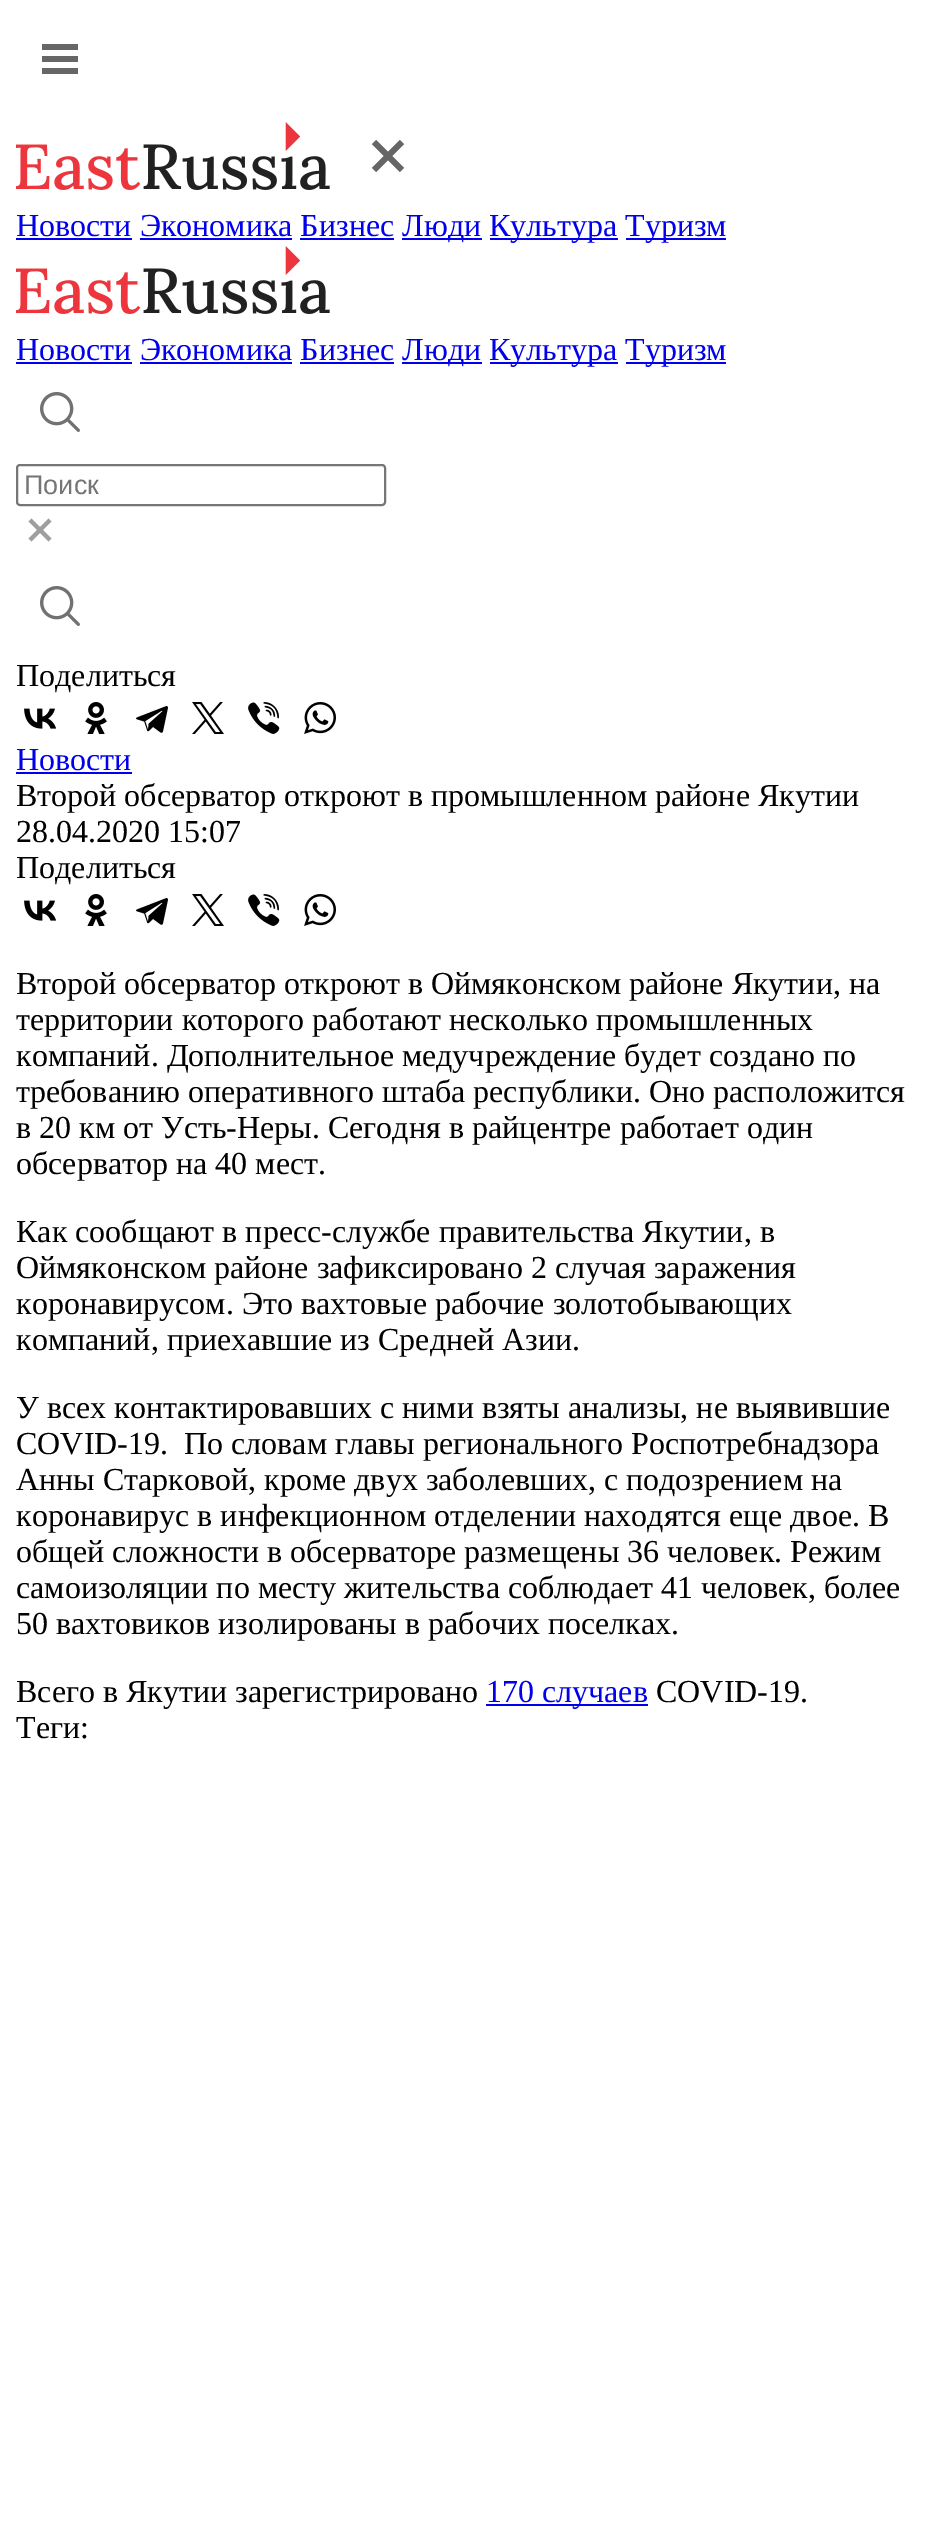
%!PS-Adobe-3.0
%%BoundingBox: 0 0 940 2527
%%LanguageLevel: 3
%%Pages: 1
%%EndComments
%%BeginProlog
/setink { 3 { 255 div 3 1 roll } repeat setrgbcolor } def
/usefont { [ exch dup neg 0 0 3 -1 roll 0 0 ] selectfont } def
/drawtext { setink usefont moveto show } def
/fillbox { setink rectfill } def
/rrect { 5 dict begin { /r /h /w /y /x } { exch def } forall
  x r add y moveto x w add y 2 copy h add r arct x w add y h add x 1 index r arct
  x y h add x y r arct x y 2 copy exch w add exch r arct closepath end } def
/drawimage { 5 dict begin { /h /w /y /x /name } { exch def } forall
  gsave x y translate w h scale
  w h 8 [w 0 0 h 0 0] name (r) file false 3 colorimage grestore end } def
%%EndProlog
%%BeginSetup
<< /PageSize [940 2527] >> setpagedevice
%%EndSetup
%%Page: 1 1
0 2527 translate 1 -1 scale
4 setmiterlimit
0 0 940 2527 255 255 255 fillbox
102 102 102 setink
42 44 moveto 78 44 lineto 78 50 lineto 42 50 lineto closepath 42 56 moveto 78 56 lineto 78 62 lineto 42 62 lineto closepath 78 68 moveto 42 68 lineto 42 74 lineto 78 74 lineto closepath eofill
(assets/img1.rgb) 16 122 314 68 drawimage
6 setlinewidth
374 142 moveto 388 156 lineto 402 170 moveto 388 156 lineto 388 156 moveto 402 142 lineto 388 156 moveto 374 170 lineto stroke
(Новости Экономика Бизнес) 16 236 /LiberationSerif-Regular 32 0 0 238 drawtext
16 238 116 2 0 0 238 fillbox
402 238 80 2 0 0 238 fillbox
(Люди) 402 236 /LiberationSerif-Regular 32 0 0 238 drawtext
490 238 128 2 0 0 238 fillbox
(Культура) 489 236 /LiberationSerif-Regular 32 0 0 238 drawtext
626 238 100 2 0 0 238 fillbox
(Туризм) 625 236 /LiberationSerif-Regular 32 0 0 238 drawtext
140 238 152 2 0 0 238 fillbox
300 238 94 2 0 0 238 fillbox
(assets/img1.rgb) 16 246 314 68 drawimage
(Новости Экономика Бизнес) 16 360 /LiberationSerif-Regular 32 0 0 238 drawtext
16 362 116 2 0 0 238 fillbox
402 362 80 2 0 0 238 fillbox
(Люди) 402 360 /LiberationSerif-Regular 32 0 0 238 drawtext
490 362 128 2 0 0 238 fillbox
(Культура) 489 360 /LiberationSerif-Regular 32 0 0 238 drawtext
626 362 100 2 0 0 238 fillbox
(Туризм) 625 360 /LiberationSerif-Regular 32 0 0 238 drawtext
140 362 152 2 0 0 238 fillbox
300 362 94 2 0 0 238 fillbox
(assets/img2.rgb) 40 392 40 40 drawimage
118 118 118 setink
2 setlinewidth
17 465 368 40 3 rrect stroke
(Поиск) 24 494 /LiberationSans-Regular 27 117 117 117 drawtext
158 158 158 setink
4 setlinewidth
30 520 moveto 40 530 lineto 50 540 moveto 40 530 lineto 40 530 moveto 50 520 lineto 40 530 moveto 30 540 lineto stroke
(assets/img2.rgb) 40 586 40 40 drawimage
(Поделиться) 16 686 /LiberationSerif-Regular 32 0 0 0 drawtext
(assets/img3.rgb) 24 708 33 21 drawimage
(assets/img4.rgb) 85 702 22 32 drawimage
(assets/img5.rgb) 136 706 32 27 drawimage
(assets/img6.rgb) 192 702 32 32 drawimage
(assets/img7.rgb) 248 702 32 32 drawimage
(assets/img8.rgb) 304 702 32 32 drawimage
(Новости) 16 770 /LiberationSerif-Regular 32 0 0 238 drawtext
16 772 116 2 0 0 238 fillbox
(Второй обсерватор откроют в промышленном районе Якутии) 16 806 /LiberationSerif-Regular 32 0 0 0 drawtext
(28.04.2020 15:07) 16 842 /LiberationSerif-Regular 32 0 0 0 drawtext
(Поделиться) 16 878 /LiberationSerif-Regular 32 0 0 0 drawtext
(assets/img3.rgb) 24 900 33 21 drawimage
(assets/img4.rgb) 85 894 22 32 drawimage
(assets/img5.rgb) 136 898 32 27 drawimage
(assets/img6.rgb) 192 894 32 32 drawimage
(assets/img7.rgb) 248 894 32 32 drawimage
(assets/img8.rgb) 304 894 32 32 drawimage
(Второй обсерватор откроют в Оймяконском районе Якутии, на) 16 994 /LiberationSerif-Regular 32 0 0 0 drawtext
(территории которого работают несколько промышленных) 16 1030 /LiberationSerif-Regular 32 0 0 0 drawtext
(компаний. Дополнительное медучреждение будет создано по) 16 1066 /LiberationSerif-Regular 32 0 0 0 drawtext
(требованию оперативного штаба республики. Оно расположится) 16 1102 /LiberationSerif-Regular 32 0 0 0 drawtext
(в 20 км от Усть-Неры. Сегодня в райцентре работает один) 16 1138 /LiberationSerif-Regular 32 0 0 0 drawtext
(обсерватор на 40 мест.) 16 1174 /LiberationSerif-Regular 32 0 0 0 drawtext
(Как сообщают в пресс-службе правительства Якутии, в) 16 1242 /LiberationSerif-Regular 32 0 0 0 drawtext
(Оймяконском районе зафиксировано 2 случая заражения) 16 1278 /LiberationSerif-Regular 32 0 0 0 drawtext
(коронавирусом. Это вахтовые рабочие золотобывающих) 16 1314 /LiberationSerif-Regular 32 0 0 0 drawtext
(компаний, приехавшие из Средней Азии.) 16 1350 /LiberationSerif-Regular 32 0 0 0 drawtext
(У всех контактировавших с ними взяты анализы, не выявившие) 16 1418 /LiberationSerif-Regular 32 0 0 0 drawtext
(COVID-19.  По словам главы регионального Роспотребнадзора) 16 1454 /LiberationSerif-Regular 32 0 0 0 drawtext
(Анны Старковой, кроме двух заболевших, с подозрением на) 16 1490 /LiberationSerif-Regular 32 0 0 0 drawtext
(коронавирус в инфекционном отделении находятся еще двое. В) 16 1526 /LiberationSerif-Regular 32 0 0 0 drawtext
(общей сложности в обсерваторе размещены 36 человек. Режим) 16 1562 /LiberationSerif-Regular 32 0 0 0 drawtext
(самоизоляции по месту жительства соблюдает 41 человек, более) 16 1598 /LiberationSerif-Regular 32 0 0 0 drawtext
(50 вахтовиков изолированы в рабочих поселках.) 16 1634 /LiberationSerif-Regular 32 0 0 0 drawtext
(Всего в Якутии зарегистрировано) 16 1702 /LiberationSerif-Regular 32 0 0 0 drawtext
486 1704 162 2 0 0 238 fillbox
(170 случаев) 486 1702 /LiberationSerif-Regular 32 0 0 238 drawtext
(COVID-19.) 656 1702 /LiberationSerif-Regular 32 0 0 0 drawtext
(Теги:) 16 1738 /LiberationSerif-Regular 32 0 0 0 drawtext
showpage
%%EOF
